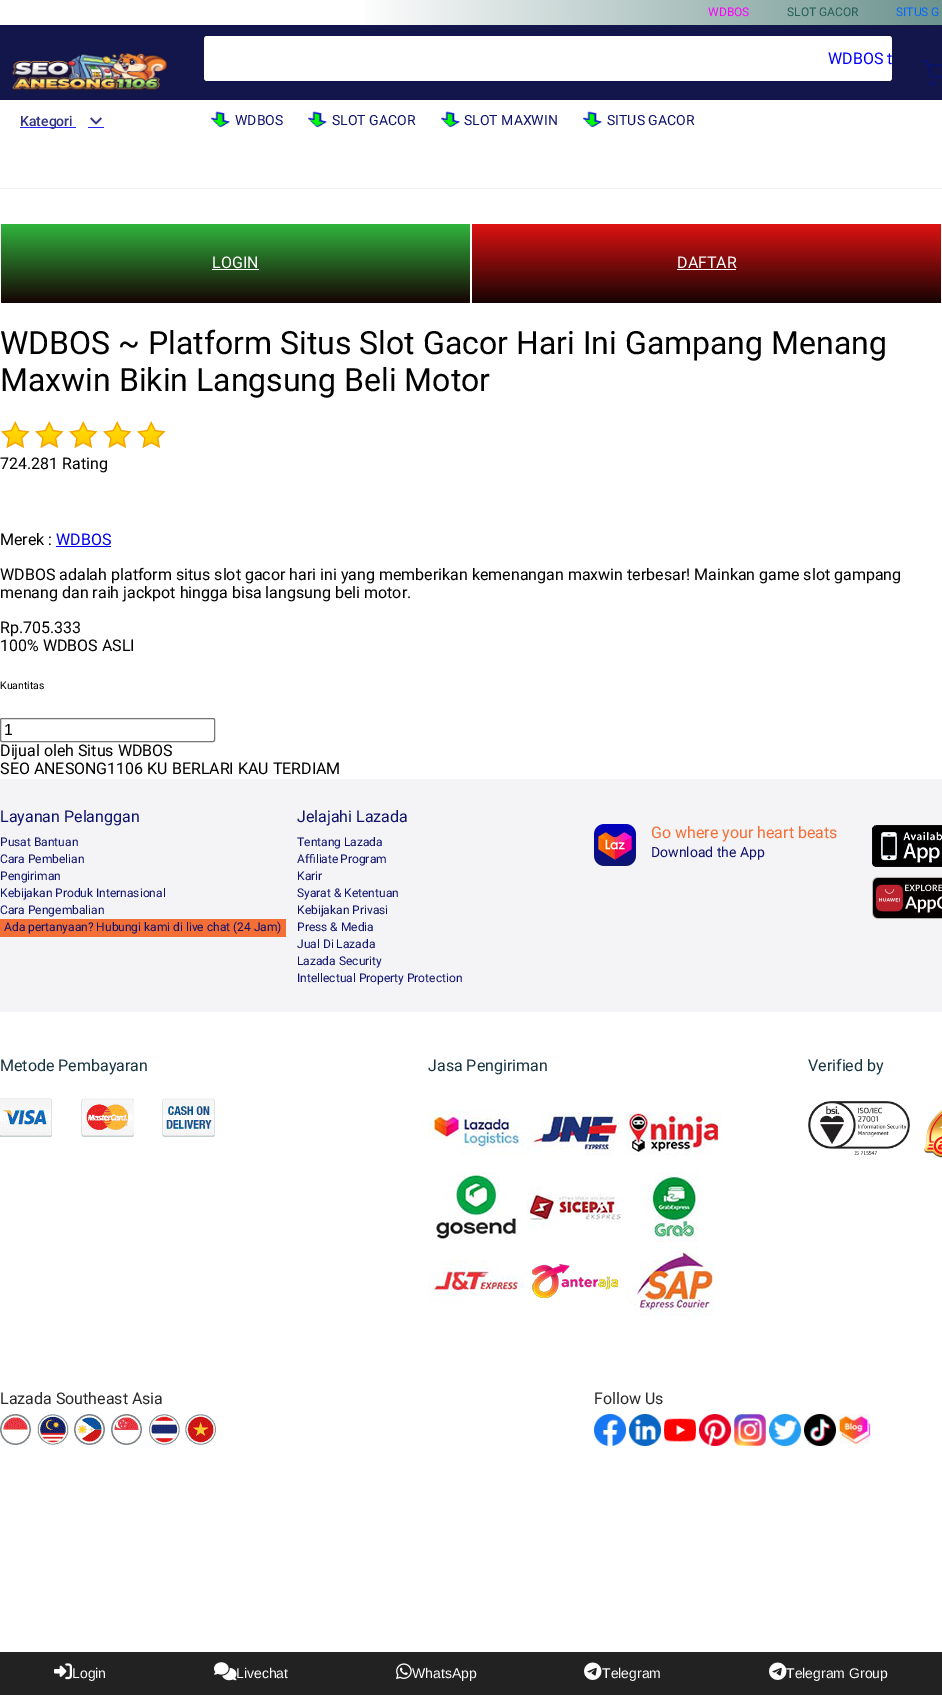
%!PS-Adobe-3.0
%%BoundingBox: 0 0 942 1695
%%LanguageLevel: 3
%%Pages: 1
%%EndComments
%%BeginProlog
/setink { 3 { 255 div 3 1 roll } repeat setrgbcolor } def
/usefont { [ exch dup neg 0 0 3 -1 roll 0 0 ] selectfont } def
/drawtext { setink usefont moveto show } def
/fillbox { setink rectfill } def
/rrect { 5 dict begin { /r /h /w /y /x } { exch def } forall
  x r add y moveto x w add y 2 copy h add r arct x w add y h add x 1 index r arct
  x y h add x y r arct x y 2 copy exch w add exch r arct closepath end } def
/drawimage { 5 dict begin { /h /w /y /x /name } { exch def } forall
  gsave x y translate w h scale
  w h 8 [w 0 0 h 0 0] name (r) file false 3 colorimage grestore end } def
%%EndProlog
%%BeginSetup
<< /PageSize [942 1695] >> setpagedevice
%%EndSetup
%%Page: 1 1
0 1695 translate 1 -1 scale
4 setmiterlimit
0 0 942 1695 255 255 255 fillbox
gsave 365 0 moveto 942 0 lineto 942 25 lineto 365 25 lineto closepath clip newpath
<< /ShadingType 2 /ColorSpace /DeviceRGB /Coords [0 14 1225 11] /Extend [true true] /Function << /FunctionType 3 /Domain [0 1] /Functions [<< /FunctionType 2 /Domain [0 1] /C0 [1 1 1] /C1 [1 1 1] /N 1 >> << /FunctionType 2 /Domain [0 1] /C0 [1 1 1] /C1 [0.145 0.373 0.341] /N 1 >>] /Bounds [0.29] /Encode [0 1 0 1] >> >> shfill grestore
(WDBOS) 708 16 /Roboto-Regular 12 255 0 255 drawtext
(SLOT GACOR) 787 16 /Roboto-Regular 12 37 95 87 drawtext
(SITUS G) 896 16 /Roboto-Regular 12 5 104 252 drawtext
0 25 942 75 18 22 75 fillbox
(assets/img1.rgb) 12 52 156 39 drawimage
255 255 255 setink
204 36 688 45 3 rrect fill
gsave
204 36 688 45 rectclip
(WDBOS t) 828 64 /Roboto-Regular 16 0 0 255 drawtext
grestore
(assets/img2.rgb) 922 60 20 26 drawimage
20 127 56 1 38 38 241 fillbox
(Kategori) 20 126 /Roboto-Medium 14 51 54 131 drawtext
88 127 16 1 38 38 241 fillbox
(assets/img3.rgb) 90 117 12 8 drawimage
(assets/img4.rgb) 211 111 19 17 drawimage
(WDBOS) 235 125 /Roboto-Regular 14 15 19 109 drawtext
(assets/img5.rgb) 308 111 19 17 drawimage
(SLOT GACOR) 332 125 /Roboto-Regular 14 15 19 109 drawtext
(assets/img5.rgb) 441 111 19 17 drawimage
(SLOT MAXWIN) 464 125 /Roboto-Regular 14 15 19 109 drawtext
(assets/img4.rgb) 583 111 19 17 drawimage
(SITUS GACOR) 607 125 /Roboto-Regular 14 15 19 109 drawtext
0 188 942 1 239 240 245 fillbox
gsave 1 224 moveto 470 224 lineto 470 303 lineto 1 303 lineto closepath clip newpath
<< /ShadingType 2 /ColorSpace /DeviceRGB /Coords [236 224 236 303] /Extend [true true] /Function << /FunctionType 2 /Domain [0 1] /C0 [0.192 0.71 0.239] /C1 [0.086 0.012 0.012] /N 1 >> >> shfill grestore
(LOGIN) 212 268 /Roboto-Regular 16 255 255 255 drawtext
212 269 47 1 255 255 255 fillbox
gsave 472 224 moveto 941 224 lineto 941 303 lineto 472 303 lineto closepath clip newpath
<< /ShadingType 2 /ColorSpace /DeviceRGB /Coords [707 224 707 303] /Extend [true true] /Function << /FunctionType 2 /Domain [0 1] /C0 [0.875 0.071 0.071] /C1 [0.086 0.012 0.012] /N 1 >> >> shfill grestore
(DAFTAR) 677 268 /Roboto-Regular 16 255 255 255 drawtext
677 269 59 1 255 255 255 fillbox
(WDBOS ~ Platform Situs Slot Gacor Hari Ini Gampang Menang) 0 354 /Roboto-Regular 32 0 0 0 drawtext
(Maxwin Bikin Langsung Beli Motor) 0 391 /Roboto-Regular 32 0 0 0 drawtext
(assets/img6.rgb) 1 421 29 27 drawimage
(assets/img6.rgb) 35 421 29 27 drawimage
(assets/img6.rgb) 69 421 29 27 drawimage
(assets/img6.rgb) 103 421 29 27 drawimage
(assets/img6.rgb) 137 421 29 27 drawimage
(724.281 Rating) 0 469 /Roboto-Regular 16 0 0 0 drawtext
(Merek :) 0 545 /Roboto-Regular 16 0 0 0 drawtext
(WDBOS) 56 545 /Roboto-Regular 16 0 0 238 drawtext
56 546 55 1 0 0 238 fillbox
(WDBOS adalah platform situs slot gacor hari ini yang memberikan kemenangan maxwin terbesar! Mainkan game slot gampang) 0 580 /Roboto-Regular 16 0 0 0 drawtext
(menang dan raih jackpot hingga bisa langsung beli motor.) 0 598 /Roboto-Regular 16 0 0 0 drawtext
(Rp.705.333) 0 633 /Roboto-Regular 16 0 0 0 drawtext
(100% WDBOS ASLI) 0 651 /Roboto-Regular 16 0 0 0 drawtext
(Kuantitas) 0 689 /Roboto-Regular 10.5 0 0 0 drawtext
118 118 118 setink
0.5 718.5 214 23 1.5 rrect stroke
(1) 4 735 /LiberationSans-Regular 16 0 0 0 drawtext
(Dijual oleh Situs WDBOS) 0 756 /Roboto-Regular 16 0 0 0 drawtext
(SEO ANESONG1106 KU BERLARI KAU TERDIAM) 0 774 /Roboto-Regular 16 0 0 0 drawtext
0 779 942 233 244 244 246 fillbox
(Layanan Pelanggan) 0 822 /Roboto-Regular 16 15 19 109 drawtext
(Pusat Bantuan) 0 846 /Roboto-Regular 12 15 19 109 drawtext
(Cara Pembelian) 0 863 /Roboto-Regular 12 15 19 109 drawtext
(Pengiriman) 0 880 /Roboto-Regular 12 15 19 109 drawtext
(Kebijakan Produk Internasional) 0 897 /Roboto-Regular 12 15 19 109 drawtext
(Cara Pengembalian) 0 914 /Roboto-Regular 12 15 19 109 drawtext
0 919 286 18 243 111 54 fillbox
(Ada pertanyaan? Hubungi kami di live chat \(24 Jam\)) 4 931 /Roboto-Regular 12 15 19 109 drawtext
(Jelajahi Lazada) 297 822 /Roboto-Regular 16 15 19 109 drawtext
(Tentang Lazada) 297 846 /Roboto-Regular 12 15 19 109 drawtext
297 863 moveto -1 0 32 (Afﬁliate Program) widthshow
(Karir) 297 880 /Roboto-Regular 12 15 19 109 drawtext
(Syarat & Ketentuan) 297 897 /Roboto-Regular 12 15 19 109 drawtext
(Kebijakan Privasi) 297 914 /Roboto-Regular 12 15 19 109 drawtext
(Press & Media) 297 931 /Roboto-Regular 12 15 19 109 drawtext
(Jual Di Lazada) 297 948 /Roboto-Regular 12 15 19 109 drawtext
(Lazada Security) 297 965 /Roboto-Regular 12 15 19 109 drawtext
(Intellectual Property Protection) 297 982 /Roboto-Regular 12 15 19 109 drawtext
(assets/img7.rgb) 594 824 42 42 drawimage
(Go where your heart beats) 651 838 /Roboto-Regular 16 243 111 54 drawtext
(Download the App) 651 857 /Roboto-Regular 14 15 19 109 drawtext
(assets/img8.rgb) 872 825 70 42 drawimage
(assets/img9.rgb) 872 877 70 42 drawimage
(Metode Pembayaran) 0 1071 /Roboto-Regular 16 24 53 68 drawtext
(assets/img10.rgb) 0 1098 52 39 drawimage
(assets/img11.rgb) 81 1098 53 39 drawimage
(assets/img12.rgb) 162 1098 53 39 drawimage
(Jasa Pengiriman) 428 1071 /Roboto-Regular 16 24 53 68 drawtext
(assets/img13.rgb) 428 1110 96 45 drawimage
(assets/img14.rgb) 527 1112 96 44 drawimage
(assets/img15.rgb) 626 1112 96 44 drawimage
(assets/img16.rgb) 435 1172 86 67 drawimage
(assets/img17.rgb) 527 1186 94 43 drawimage
(assets/img18.rgb) 640 1172 59 70 drawimage
(assets/img19.rgb) 428 1260 96 43 drawimage
(assets/img20.rgb) 532 1264 86 34 drawimage
(assets/img21.rgb) 626 1246 87 70 drawimage
(Verified by) 808 1071 /Roboto-Regular 16 24 53 68 drawtext
(assets/img22.rgb) 808 1101 102 54 drawimage
(assets/img23.rgb) 924 1110 18 48 drawimage
(Lazada Southeast Asia) 0 1404 /Roboto-Regular 16 42 42 42 drawtext
(assets/img24.rgb) 0 1414 31 31 drawimage
(assets/img25.rgb) 37 1414 32 31 drawimage
(assets/img26.rgb) 74 1414 31 31 drawimage
(assets/img27.rgb) 111 1414 31 31 drawimage
(assets/img28.rgb) 149 1414 31 31 drawimage
(assets/img29.rgb) 185 1414 31 31 drawimage
(Follow Us) 594 1404 /Roboto-Regular 16 42 42 42 drawtext
(assets/img30.rgb) 594 1414 32 32 drawimage
(assets/img31.rgb) 629 1414 32 32 drawimage
(assets/img32.rgb) 664 1418 32 24 drawimage
(assets/img33.rgb) 699 1414 32 32 drawimage
(assets/img34.rgb) 734 1414 32 32 drawimage
(assets/img35.rgb) 769 1414 32 32 drawimage
(assets/img36.rgb) 804 1414 32 32 drawimage
(assets/img37.rgb) 839 1414 32 31 drawimage
0 1652 942 43 34 34 34 fillbox
(assets/img38.rgb) 54 1663 18 17 drawimage
(Login) 72 1678 /LiberationSans-Regular 14 255 255 255 drawtext
(assets/img39.rgb) 214 1662 23 19 drawimage
(Livechat) 236 1678 /LiberationSans-Regular 14 255 255 255 drawtext
(assets/img40.rgb) 396 1663 16 17 drawimage
(WhatsApp) 412 1678 /LiberationSans-Regular 14 255 255 255 drawtext
(assets/img41.rgb) 584 1662 18 18 drawimage
(Telegram) 602 1678 /LiberationSans-Regular 14 255 255 255 drawtext
(assets/img41.rgb) 769 1662 18 18 drawimage
(Telegram Group) 786 1678 /LiberationSans-Regular 14 255 255 255 drawtext
showpage
%%EOF
